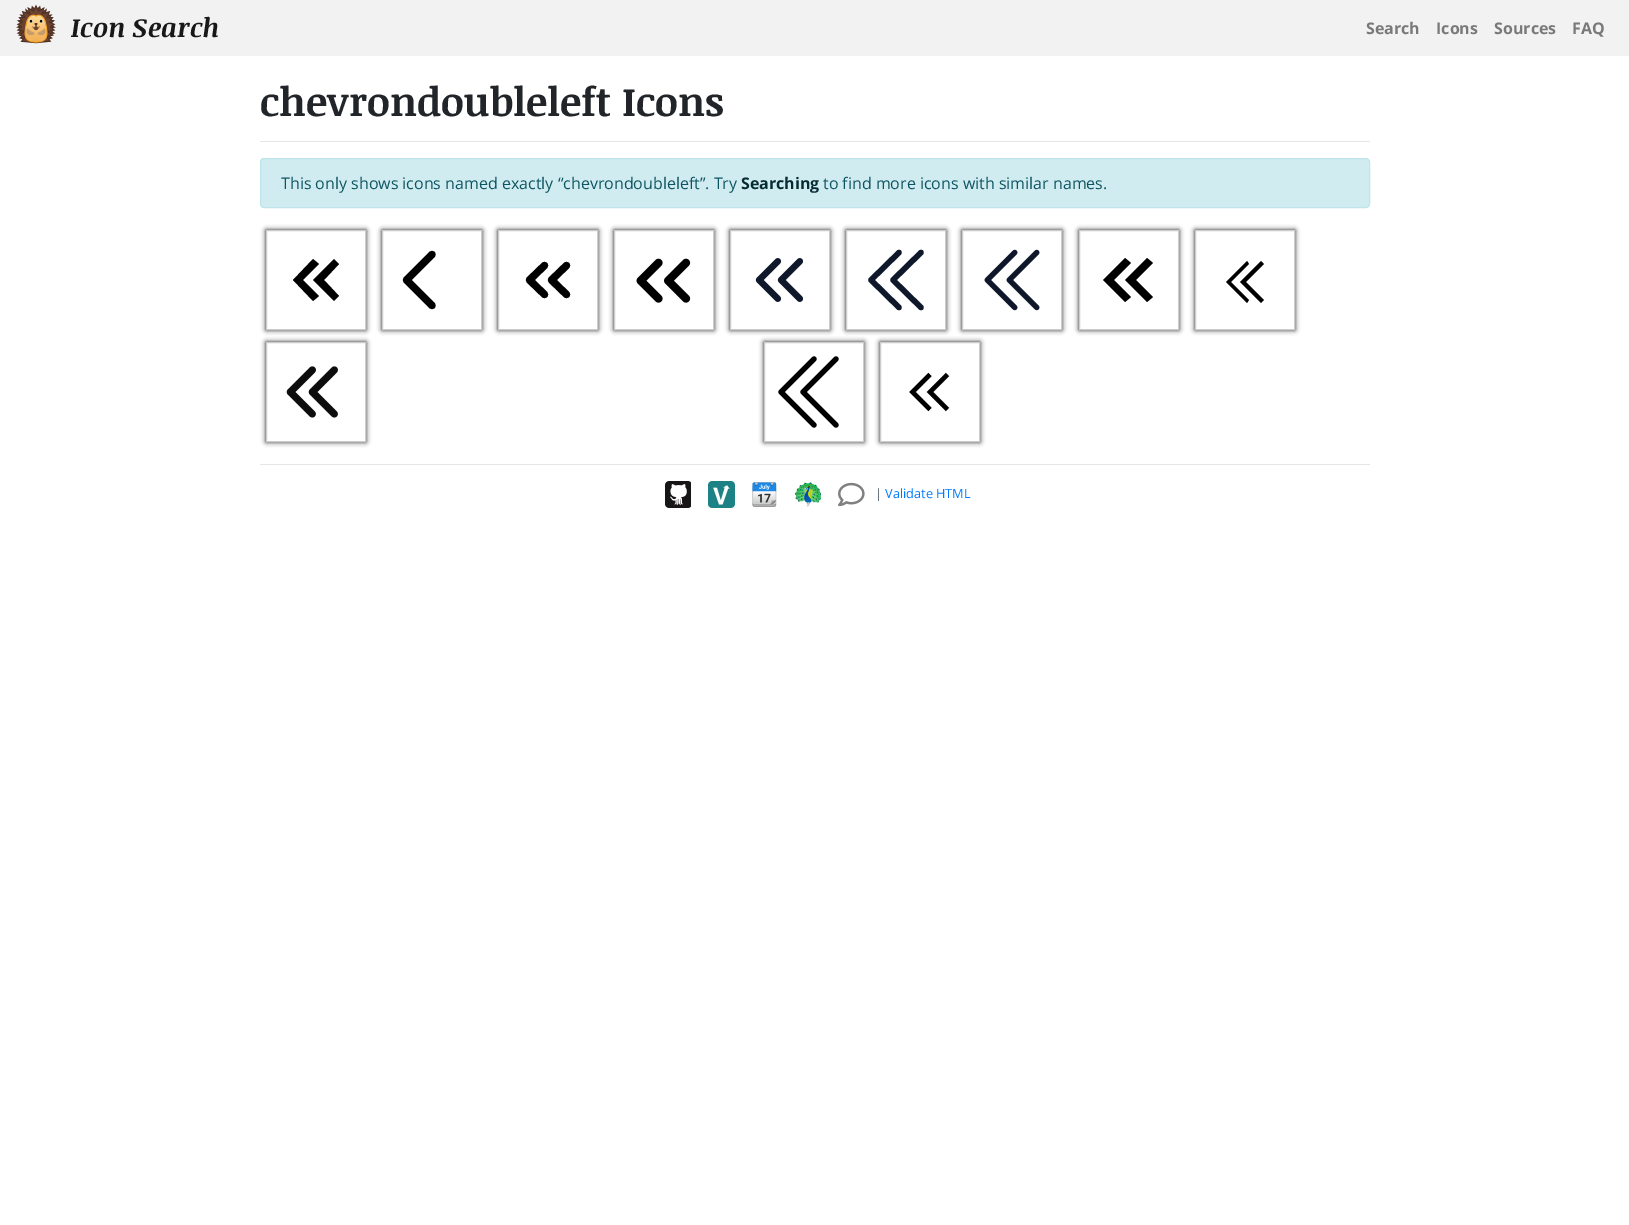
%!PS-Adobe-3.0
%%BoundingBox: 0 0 1629 1225
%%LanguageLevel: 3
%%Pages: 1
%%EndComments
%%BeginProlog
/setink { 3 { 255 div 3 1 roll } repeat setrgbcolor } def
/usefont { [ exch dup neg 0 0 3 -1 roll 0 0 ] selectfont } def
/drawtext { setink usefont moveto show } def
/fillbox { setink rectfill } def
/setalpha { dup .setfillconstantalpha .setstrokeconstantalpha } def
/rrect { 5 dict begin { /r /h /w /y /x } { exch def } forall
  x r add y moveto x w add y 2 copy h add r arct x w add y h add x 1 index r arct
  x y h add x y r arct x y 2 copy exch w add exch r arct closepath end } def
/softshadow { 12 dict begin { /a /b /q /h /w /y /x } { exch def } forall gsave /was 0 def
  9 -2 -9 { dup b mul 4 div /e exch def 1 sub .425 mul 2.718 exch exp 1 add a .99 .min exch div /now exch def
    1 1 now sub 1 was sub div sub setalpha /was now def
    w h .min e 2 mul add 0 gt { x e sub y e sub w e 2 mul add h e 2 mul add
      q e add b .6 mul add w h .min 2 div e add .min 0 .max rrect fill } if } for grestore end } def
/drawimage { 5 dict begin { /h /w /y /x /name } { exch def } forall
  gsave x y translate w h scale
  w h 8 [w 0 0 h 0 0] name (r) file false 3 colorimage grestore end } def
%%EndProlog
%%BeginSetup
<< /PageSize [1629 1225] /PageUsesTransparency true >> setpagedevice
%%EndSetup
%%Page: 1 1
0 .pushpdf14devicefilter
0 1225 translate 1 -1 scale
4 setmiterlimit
0 0 1629 1225 255 255 255 fillbox
0 0 1629 56 242 242 242 fillbox
(assets/img1.rgb) 16 4 40 40 drawimage
(Icon Search) 71 37 /NoticiaText-BoldItalic 26.5 24 24 24 drawtext
(Search) 1366 34 /OpenSans-Bold 16 121 121 121 drawtext
(Icons) 1436 34 /OpenSans-Bold 16 121 121 121 drawtext
(Sources) 1494 34 /OpenSans-Bold 16 121 121 121 drawtext
(FAQ) 1572 34 /OpenSans-Bold 16 121 121 121 drawtext
(chevrondoubleleft Icons) 260 116 /NoticiaText-Bold 40 33 37 41 drawtext
260 141 1110 1 230 230 230 fillbox
209 236 241 setink
260.5 158.5 1109 49 3.5 rrect gsave fill grestore
190 229 235 setink
stroke
(This only shows icons named exactly “chevrondoubleleft”. Try) 281 189 /OpenSans-Regular 16 12 84 96 drawtext
(Searching) 741 189 /OpenSans-Bold 16 6 44 51 drawtext
(to find more icons with similar names.) 823 189 /OpenSans-Regular 16 12 84 96 drawtext
gsave
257 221 moveto 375 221 lineto 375 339 lineto 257 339 lineto closepath 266 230 moveto 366 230 lineto 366 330 lineto 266 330 lineto closepath eoclip newpath
29 29 29 setink
266 230 100 100 0 2.5 1 softshadow
grestore
gsave
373 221 moveto 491 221 lineto 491 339 lineto 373 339 lineto closepath 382 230 moveto 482 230 lineto 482 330 lineto 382 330 lineto closepath eoclip newpath
29 29 29 setink
382 230 100 100 0 2.5 1 softshadow
grestore
gsave
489 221 moveto 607 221 lineto 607 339 lineto 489 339 lineto closepath 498 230 moveto 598 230 lineto 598 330 lineto 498 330 lineto closepath eoclip newpath
29 29 29 setink
498 230 100 100 0 2.5 1 softshadow
grestore
gsave
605 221 moveto 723 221 lineto 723 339 lineto 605 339 lineto closepath 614 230 moveto 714 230 lineto 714 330 lineto 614 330 lineto closepath eoclip newpath
29 29 29 setink
614 230 100 100 0 2.5 1 softshadow
grestore
gsave
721 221 moveto 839 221 lineto 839 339 lineto 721 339 lineto closepath 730 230 moveto 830 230 lineto 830 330 lineto 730 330 lineto closepath eoclip newpath
29 29 29 setink
730 230 100 100 0 2.5 1 softshadow
grestore
gsave
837 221 moveto 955 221 lineto 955 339 lineto 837 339 lineto closepath 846 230 moveto 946 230 lineto 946 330 lineto 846 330 lineto closepath eoclip newpath
29 29 29 setink
846 230 100 100 0 2.5 1 softshadow
grestore
gsave
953 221 moveto 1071 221 lineto 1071 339 lineto 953 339 lineto closepath 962 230 moveto 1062 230 lineto 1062 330 lineto 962 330 lineto closepath eoclip newpath
29 29 29 setink
962 230 100 100 0 2.5 1 softshadow
grestore
gsave
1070 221 moveto 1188 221 lineto 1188 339 lineto 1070 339 lineto closepath 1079 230 moveto 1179 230 lineto 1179 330 lineto 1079 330 lineto closepath eoclip newpath
29 29 29 setink
1079 230 100 100 0 2.5 1 softshadow
grestore
gsave
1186 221 moveto 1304 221 lineto 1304 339 lineto 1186 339 lineto closepath 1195 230 moveto 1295 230 lineto 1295 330 lineto 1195 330 lineto closepath eoclip newpath
29 29 29 setink
1195 230 100 100 0 2.5 1 softshadow
grestore
204 204 204 setink
266.5 230.5 99 99 rectstroke
382.5 230.5 99 99 rectstroke
498.5 230.5 99 99 rectstroke
614.5 230.5 99 99 rectstroke
730.5 230.5 99 99 rectstroke
846.5 230.5 99 99 rectstroke
962.5 230.5 99 99 rectstroke
1079.5 230.5 99 99 rectstroke
1195.5 230.5 99 99 rectstroke
0 0 0 setink
339 264 moveto 334 259 lineto 313 280 lineto 334 301 lineto 339 296 lineto 324 280 lineto closepath fill
313 259 moveto 319 264 lineto 303 280 lineto 319 296 lineto 313 301 lineto 293 280 lineto closepath fill
7.3 setlinewidth
1 setlinecap
1 setlinejoin
[44 44] 0 setdash
406.5 280 moveto 432 254.5 lineto 406.5 280 moveto 432 305.5 lineto stroke
[] 0 setdash
566.5 294.5 moveto 551.5 280 lineto 566.5 265.5 lineto 544.5 294.5 moveto 529.5 280 lineto 544.5 265.5 lineto stroke
(assets/img2.rgb) 636 258 55 45 drawimage
(assets/img3.rgb) 755 258 49 44 drawimage
15 23 42 setink
5.5 setlinewidth
921 252.5 moveto 893 280 lineto 921 307.5 lineto 899 252.5 moveto 871 280 lineto 899 307.5 lineto stroke
(assets/img4.rgb) 984 249 56 62 drawimage
0 0 0 setink
1153 263 moveto 1147 258 lineto 1125 280 lineto 1147 302 lineto 1153 297 lineto 1136 280 lineto 1153 263 lineto 1131 263 moveto 1125 258 lineto 1103 280 lineto 1125 302 lineto 1131 297 lineto 1114 280 lineto closepath fill
1261 303 moveto 1240 282 lineto 1261 261 lineto 1264 264 lineto 1246 282 lineto 1264 300 lineto 1261 303 lineto 1247 303 moveto 1226 282 lineto 1247 261 lineto 1249 264 lineto 1231 282 lineto 1249 300 lineto closepath fill
gsave
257 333 moveto 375 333 lineto 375 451 lineto 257 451 lineto closepath 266 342 moveto 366 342 lineto 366 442 lineto 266 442 lineto closepath eoclip newpath
29 29 29 setink
266 342 100 100 0 2.5 1 softshadow
grestore
gsave
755 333 moveto 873 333 lineto 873 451 lineto 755 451 lineto closepath 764 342 moveto 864 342 lineto 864 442 lineto 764 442 lineto closepath eoclip newpath
29 29 29 setink
764 342 100 100 0 2.5 1 softshadow
grestore
gsave
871 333 moveto 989 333 lineto 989 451 lineto 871 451 lineto closepath 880 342 moveto 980 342 lineto 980 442 lineto 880 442 lineto closepath eoclip newpath
29 29 29 setink
880 342 100 100 0 2.5 1 softshadow
grestore
204 204 204 setink
1 setlinewidth
0 setlinecap
0 setlinejoin
266.5 342.5 99 99 rectstroke
764.5 342.5 99 99 rectstroke
880.5 342.5 99 99 rectstroke
(assets/img5.rgb) 286 366 52 52 drawimage
(assets/img6.rgb) 778 356 61 72 drawimage
0 0 0 setink
4.5 setlinewidth
930 409.5 moveto 912.5 392 lineto 930 374.5 lineto 947.5 409.5 moveto 930 392 lineto 947.5 374.5 lineto stroke
260 464 1110 1 230 230 230 fillbox
(assets/img7.rgb) 665 481 26 27 drawimage
(assets/img8.rgb) 708 481 27 27 drawimage
(assets/img9.rgb) 752 482 25 25 drawimage
(assets/img10.rgb) 795 482 26 25 drawimage
(assets/img11.rgb) 838 482 27 25 drawimage
(|) 875 498 /OpenSans-Regular 12.75 108 117 125 drawtext
(Validate HTML) 885 498 /OpenSans-Regular 12.75 0 123 255 drawtext
.poppdf14devicefilter showpage
%%EOF
